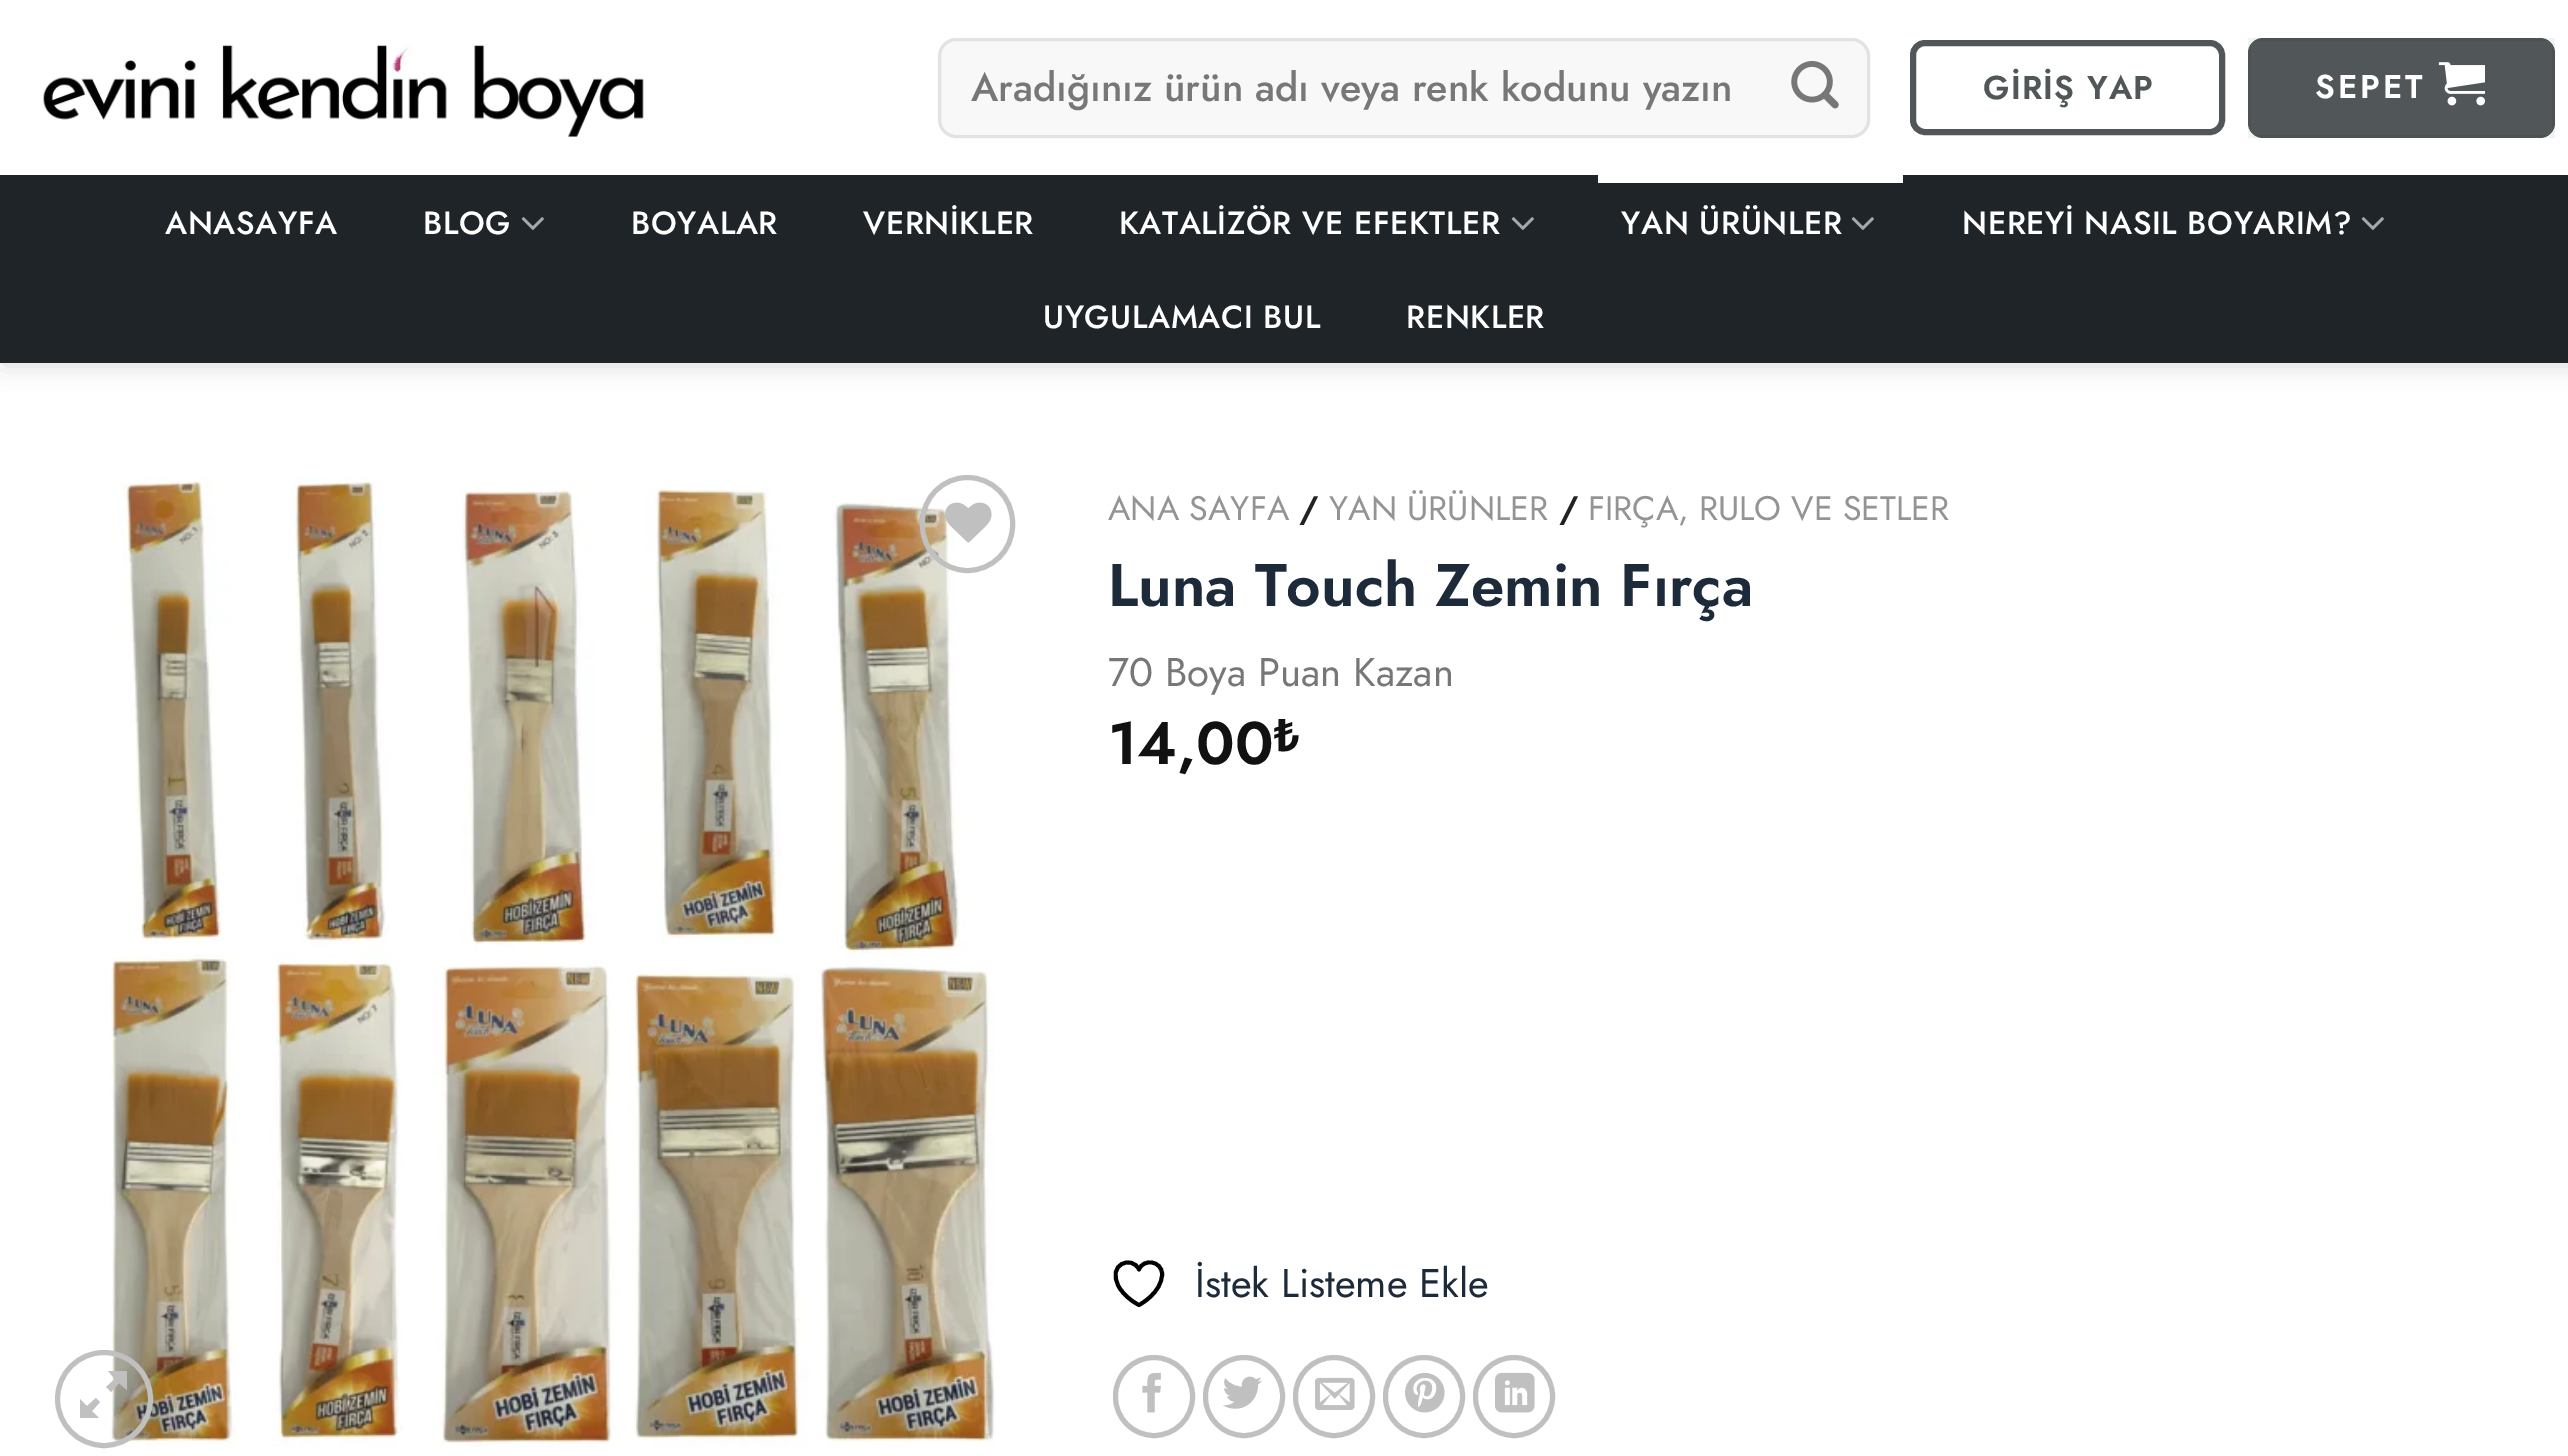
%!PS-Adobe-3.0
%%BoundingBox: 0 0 2568 1456
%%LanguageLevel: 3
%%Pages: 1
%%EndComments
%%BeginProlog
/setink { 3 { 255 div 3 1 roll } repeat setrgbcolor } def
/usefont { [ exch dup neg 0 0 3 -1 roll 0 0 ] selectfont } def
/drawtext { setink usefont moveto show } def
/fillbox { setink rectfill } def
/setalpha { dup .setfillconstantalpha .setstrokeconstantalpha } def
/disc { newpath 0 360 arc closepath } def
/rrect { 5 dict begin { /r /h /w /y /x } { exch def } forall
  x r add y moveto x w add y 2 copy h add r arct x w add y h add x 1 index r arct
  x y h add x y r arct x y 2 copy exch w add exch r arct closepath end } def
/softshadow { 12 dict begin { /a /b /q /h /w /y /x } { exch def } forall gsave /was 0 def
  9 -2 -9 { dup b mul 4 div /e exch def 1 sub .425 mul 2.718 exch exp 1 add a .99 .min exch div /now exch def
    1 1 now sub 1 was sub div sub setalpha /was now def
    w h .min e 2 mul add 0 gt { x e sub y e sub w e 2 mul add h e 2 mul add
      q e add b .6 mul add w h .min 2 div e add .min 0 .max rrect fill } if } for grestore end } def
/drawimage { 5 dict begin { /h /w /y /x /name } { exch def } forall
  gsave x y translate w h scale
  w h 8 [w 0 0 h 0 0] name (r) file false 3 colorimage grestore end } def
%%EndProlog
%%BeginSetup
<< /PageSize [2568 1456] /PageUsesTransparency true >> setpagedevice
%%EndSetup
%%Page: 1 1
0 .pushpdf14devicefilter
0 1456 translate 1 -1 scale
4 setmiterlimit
0 0 2568 1456 255 255 255 fillbox
0 0 0 setink
3 3 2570 362 0 12.5 0.15 softshadow
0 0 2568 175 255 255 255 fillbox
(assets/img1.rgb) 43 44 601 93 drawimage
248 248 248 setink
938 38 932 100 18 rrect fill
0.09 setalpha
0 0 0 setink
3 setlinewidth
939.5 39.5 929 97 16.5 rrect stroke
1 setalpha
(Aradığınız ürün adı veya renk kodunu yazın) 971 101 /Jost-Medium 39.6 119 119 119 drawtext
(assets/img2.rgb) 1791 61 48 48 drawimage
81 87 88 setink
6 setlinewidth
1913 43 309 89 12 rrect stroke
/Jost-SemiBold 33 usefont
1983 99 moveto 1.25 0 (GİRİŞ YAP) ashow
2248 38 307 100 15 rrect fill
0.05 setalpha
0 0 0 setink
3 setlinewidth
2249.5 39.5 304 97 rectstroke
1 setalpha
255 255 255 setink
2315 98 moveto 3 0 (SEPET) ashow
(assets/img3.rgb) 2438 62 47 44 drawimage
0 175 2568 188 30 36 40 fillbox
/Jost-Medium 32 usefont
255 255 255 setink
165 234 moveto 0.6 0 (ANASAYFA) ashow
423 234 moveto 0.6 0 (BLOG) ashow
(assets/img4.rgb) 521 217 23 13 drawimage
631 234 moveto 0.6 0 (BOYALAR) ashow
863 234 moveto 0.6 0 (VERNİKLER) ashow
1119 234 moveto 0.6 0 (KATALİZÖR VE EFEKTLER) ashow
(assets/img4.rgb) 1511 217 23 13 drawimage
1598 175 305 8 255 255 255 fillbox
1621 234 moveto 0.6 0 (YAN ÜRÜNLER) ashow
(assets/img4.rgb) 1851 217 23 13 drawimage
1962 234 moveto 0.6 0 (NEREYİ NASIL BOYARIM?) ashow
(assets/img4.rgb) 2361 217 23 13 drawimage
1043 328 moveto 0.6 0 (UYGULAMACI BUL) ashow
1406 328 moveto 0.6 0 (RENKLER) ashow
(assets/img5.rgb) 110 475 885 972 drawimage
192 192 192 setink
5 setlinewidth
922.5 477.5 90 93 45 rrect stroke
(assets/img6.rgb) 945 502 47 41 drawimage
104 1399 46.5 disc stroke
127 1371 moveto 127 1390 lineto 119 1383 lineto 111 1392 lineto 106 1387 lineto 115 1379 lineto 108 1371 lineto closepath 100 1402 moveto 92 1411 lineto 99 1418 lineto 80 1418 lineto 80 1399 lineto 87 1406 lineto 96 1398 lineto closepath fill
(ANA SAYFA) 1108 520 /Jost-Regular 34 148 148 148 drawtext
(/) 1299 520 /Jost-SemiBold 34 34 34 34 drawtext
(YAN ÜRÜNLER) 1329 520 /Jost-Regular 34 148 148 148 drawtext
(/) 1559 520 /Jost-SemiBold 34 34 34 34 drawtext
(FIRÇA, RULO VE SETLER) 1588 520 /Jost-Regular 34 148 148 148 drawtext
(Luna Touch Zemin Fırça) 1108 606 /Jost-SemiBold 60 28 42 57 drawtext
(70 Boya Puan Kazan) 1108 686 /Jost-Regular 40 119 119 119 drawtext
(14,00) 1108 764 /Jost-SemiBold 60 17 17 17 drawtext
(₺) 1274 751 /NotoSans-Bold 45 17 17 17 drawtext
(İstek Listeme Ekle) 1195 1297 /Jost-Regular 40 28 42 57 drawtext
0 0 0 setink
3.9 setlinewidth
1 setlinecap
1 setlinejoin
1162 1274 moveto 1162 1261 1143.5 1258 1139 1269.5 curveto 1132.5 1255 1106 1263.5 1119 1287 curveto 1123.5 1294.5 1131 1301 1139 1305 curveto 1139 1305 1162 1293 1162 1274 curveto closepath stroke
192 192 192 setink
5 setlinewidth
0 setlinecap
0 setlinejoin
1115.5 1357.5 77 78 38.5 rrect stroke
(assets/img7.rgb) 1142 1372 19 41 drawimage
1205.5 1357.5 77 78 38.5 rrect stroke
(assets/img8.rgb) 1223 1376 39 33 drawimage
1295.5 1357.5 77 78 38.5 rrect stroke
(assets/img9.rgb) 1315 1377 40 33 drawimage
1385.5 1357.5 77 78 38.5 rrect stroke
(assets/img10.rgb) 1405 1372 40 41 drawimage
1475.5 1357.5 77 78 38.5 rrect stroke
(assets/img11.rgb) 1495 1372 40 41 drawimage
.poppdf14devicefilter showpage
%%EOF
